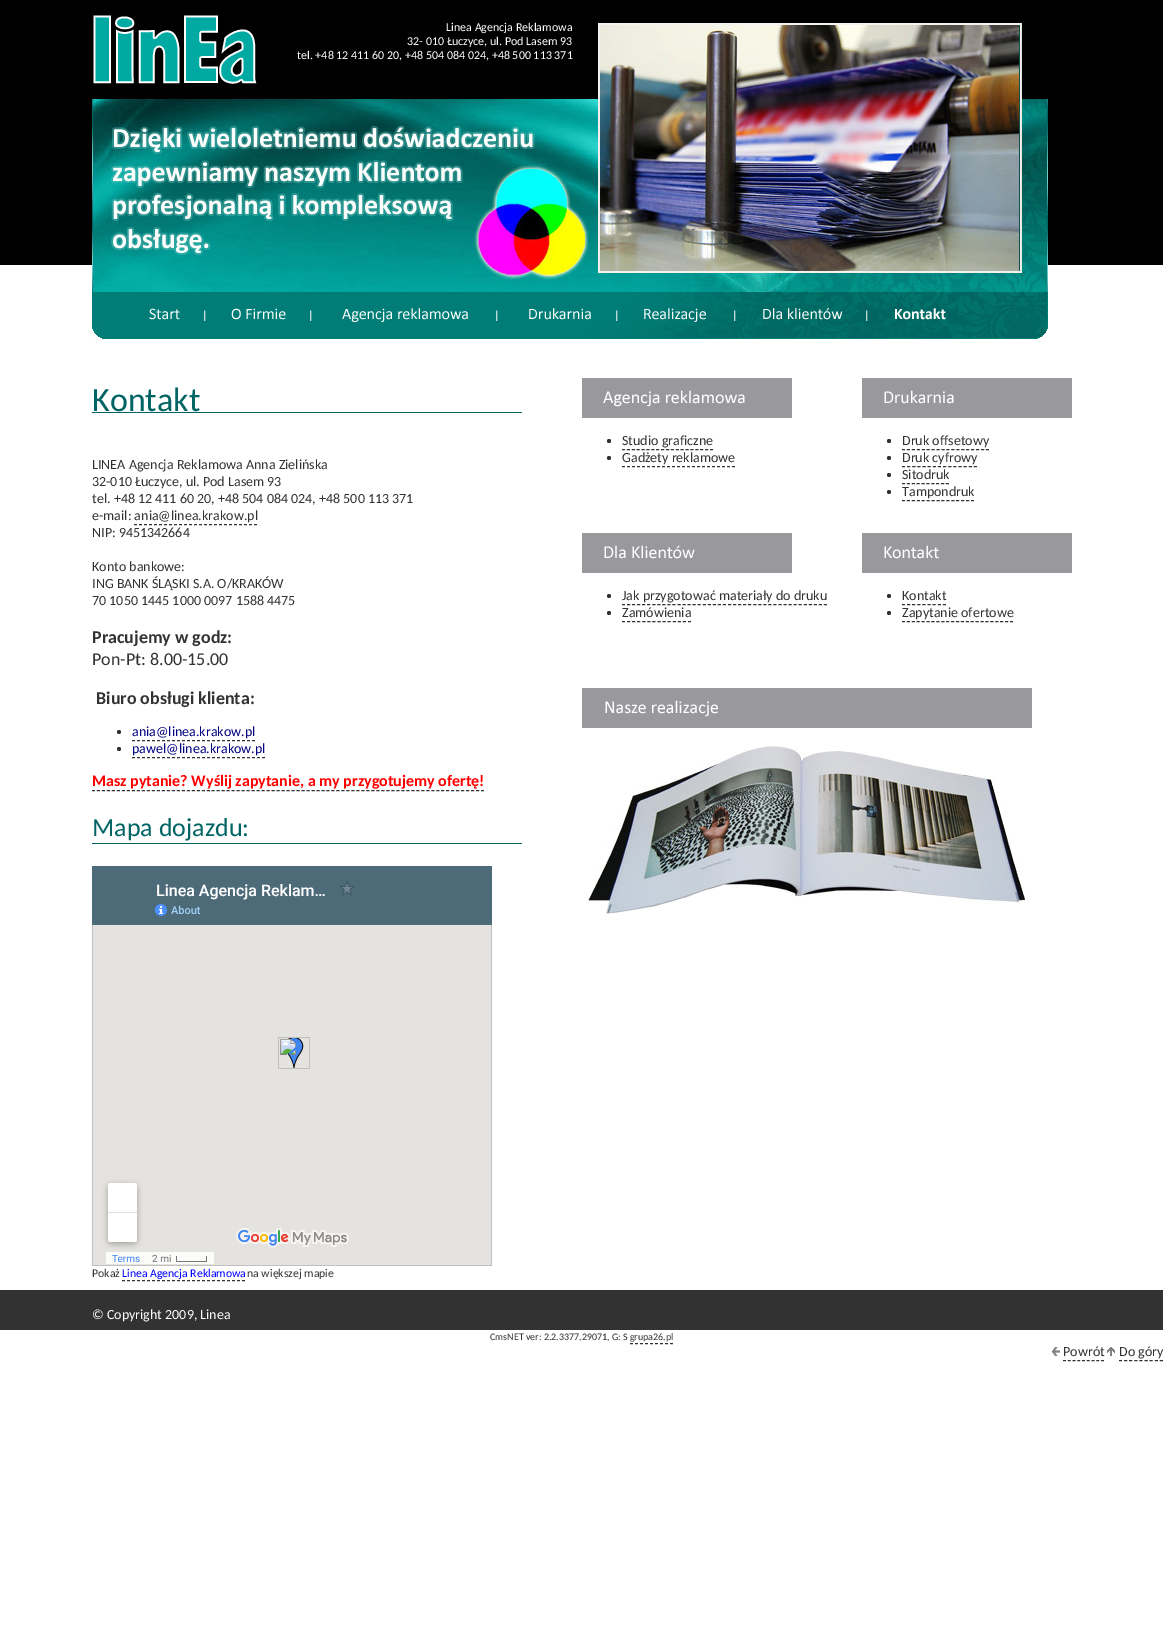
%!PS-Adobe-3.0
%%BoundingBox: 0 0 1163 1636
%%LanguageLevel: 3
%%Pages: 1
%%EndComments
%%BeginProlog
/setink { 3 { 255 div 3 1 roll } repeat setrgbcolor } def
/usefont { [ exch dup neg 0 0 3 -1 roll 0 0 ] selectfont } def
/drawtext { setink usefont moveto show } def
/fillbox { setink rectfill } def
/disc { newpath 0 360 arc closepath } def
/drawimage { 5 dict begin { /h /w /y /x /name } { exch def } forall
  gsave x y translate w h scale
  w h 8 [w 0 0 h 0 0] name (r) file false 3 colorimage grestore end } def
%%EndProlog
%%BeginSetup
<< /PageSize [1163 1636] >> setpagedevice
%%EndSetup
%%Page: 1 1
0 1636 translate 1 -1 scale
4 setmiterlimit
0 0 1163 1636 255 255 255 fillbox
0 0 1163 265 0 0 0 fillbox
(assets/img1.rgb) 93 15 164 69 drawimage
(Linea Agencja Reklamowa) 446 31 /Carlito-Regular 12 255 255 255 drawtext
(32- 010 Łuczyce, ul. Pod Lasem 93) 407 45 /Carlito-Regular 12 255 255 255 drawtext
(tel. +48 12 411 60 20, +48 504 084 024, +48 500 113 371) 297 59 /Carlito-Regular 12 255 255 255 drawtext
(assets/img2.rgb) 92 99 498 193 drawimage
(assets/img3.rgb) 590 23 458 269 drawimage
(assets/img4.rgb) 600 25 419 246 drawimage
(assets/img5.rgb) 92 292 956 47 drawimage
(assets/img6.rgb) 149 308 57 13 drawimage
(assets/img7.rgb) 231 308 81 13 drawimage
(assets/img8.rgb) 342 308 156 14 drawimage
(assets/img9.rgb) 529 308 89 13 drawimage
(assets/img10.rgb) 644 302 102 24 drawimage
(assets/img11.rgb) 749 302 130 24 drawimage
(assets/img12.rgb) 882 302 76 24 drawimage
92 412 430 1 0 100 101 fillbox
(Kontakt) 92 411 /Carlito-Regular 34 0 100 101 drawtext
(LINEA Agencja Reklamowa Anna Zielińska) 92 469 /Carlito-Regular 14 50 50 50 drawtext
(32-010 Łuczyce, ul. Pod Lasem 93) 92 486 /Carlito-Regular 14 50 50 50 drawtext
(tel. +48 12 411 60 20, +48 504 084 024, +48 500 113 371) 92 503 /Carlito-Regular 14 50 50 50 drawtext
(e-mail: ania@linea.krakow.pl) 92 520 /Carlito-Regular 14 50 50 50 drawtext
[3 2] 0 setdash
134 524.5 moveto 257 524.5 lineto stroke
(NIP: 9451342664) 92 537 /Carlito-Regular 14 50 50 50 drawtext
(Konto bankowe:) 92 571 /Carlito-Regular 14 50 50 50 drawtext
(ING BANK ŚLĄSKI S.A. O/KRAKÓW) 92 588 /Carlito-Regular 14 50 50 50 drawtext
(70 1050 1445 1000 0097 1588 4475) 92 605 /Carlito-Regular 14 50 50 50 drawtext
(Pracujemy w godz:) 92 643 /Carlito-Bold 18 50 50 50 drawtext
(Pon-Pt: 8.00-15.00) 92 665 /Carlito-Regular 18 50 50 50 drawtext
(Biuro obsługi klienta:) 96 704 /Carlito-Bold 18 50 50 50 drawtext
119 732 2 disc fill
(ania@linea.krakow.pl) 132 736 /Carlito-Regular 14 0 0 128 drawtext
50 50 50 setink
132 740.5 moveto 255 740.5 lineto stroke
119 749 2 disc fill
(pawel@linea.krakow.pl) 132 753 /Carlito-Regular 14 0 0 128 drawtext
50 50 50 setink
132 757.5 moveto 265 757.5 lineto stroke
(Masz pytanie? Wyślij zapytanie, a my przygotujemy ofertę!) 92 786 /Carlito-Bold 16 255 0 0 drawtext
50 50 50 setink
[3 1.99] 0 setdash
92 790.5 moveto 484 790.5 lineto stroke
92 843 430 1 0 100 101 fillbox
(Mapa dojazdu:) 92 836 /Carlito-Regular 26 0 100 101 drawtext
(assets/img13.rgb) 92 866 400 400 drawimage
(Pokaż) 92 1277 /Carlito-Regular 11.75 50 50 50 drawtext
(Linea Agencja Reklamowa) 122 1277 /Carlito-Regular 11.75 0 0 255 drawtext
50 50 50 setink
[3 2] 0 setdash
122 1280.5 moveto 245 1280.5 lineto stroke
(na większej mapie) 247 1277 /Carlito-Regular 11.75 50 50 50 drawtext
(assets/img14.rgb) 582 378 210 40 drawimage
609 441 2 disc fill
(Studio graficzne) 622 445 /Carlito-Regular 14 50 50 50 drawtext
[3 1.89] 0 setdash
622 449.5 moveto 713 449.5 lineto stroke
609 458 2 disc fill
(Gadżety reklamowe) 622 462 /Carlito-Regular 14 50 50 50 drawtext
[3 2] 0 setdash
622 466.5 moveto 735 466.5 lineto stroke
(assets/img15.rgb) 862 378 210 40 drawimage
889 441 2 disc fill
(Druk offsetowy) 902 445 /Carlito-Regular 14 50 50 50 drawtext
[3 1.94] 0 setdash
902 449.5 moveto 989 449.5 lineto stroke
889 458 2 disc fill
(Druk cyfrowy) 902 462 /Carlito-Regular 14 50 50 50 drawtext
[3 2.14] 0 setdash
902 466.5 moveto 977 466.5 lineto stroke
889 475 2 disc fill
(Sitodruk) 902 479 /Carlito-Regular 14 50 50 50 drawtext
[3 1.89] 0 setdash
902 483.5 moveto 949 483.5 lineto stroke
889 492 2 disc fill
(Tampondruk) 902 496 /Carlito-Regular 14 50 50 50 drawtext
[3 1.93] 0 setdash
902 500.5 moveto 974 500.5 lineto stroke
(assets/img16.rgb) 582 533 210 40 drawimage
609 596 2 disc fill
(Jak przygotować materiały do druku) 622 600 /Carlito-Regular 14 50 50 50 drawtext
[3 2.05] 0 setdash
622 604.5 moveto 827 604.5 lineto stroke
609 613 2 disc fill
(Zamówienia) 622 617 /Carlito-Regular 14 50 50 50 drawtext
[3 2.08] 0 setdash
622 621.5 moveto 691 621.5 lineto stroke
(assets/img17.rgb) 862 533 210 40 drawimage
889 596 2 disc fill
(Kontakt) 902 600 /Carlito-Regular 14 50 50 50 drawtext
[3 2.12] 0 setdash
902 604.5 moveto 946 604.5 lineto stroke
889 613 2 disc fill
(Zapytanie ofertowe) 902 617 /Carlito-Regular 14 50 50 50 drawtext
[3 1.91] 0 setdash
902 621.5 moveto 1013 621.5 lineto stroke
(assets/img18.rgb) 582 688 450 40 drawimage
(assets/img19.rgb) 586 746 440 174 drawimage
0 1290 1163 40 50 50 50 fillbox
(© Copyright 2009, Linea) 92 1319 /Carlito-Regular 14 255 255 255 drawtext
(CmsNET ver: 2.2.3377.29071, G: S grupa26.pl) 490 1340 /Carlito-Regular 10 50 50 50 drawtext
[3 2] 0 setdash
630 1343.5 moveto 673 1343.5 lineto stroke
(assets/img20.rgb) 1052 1347 8 9 drawimage
(Powrót) 1063 1356 /Carlito-Regular 14 50 50 50 drawtext
[3 1.75] 0 setdash
1063 1360.5 moveto 1104 1360.5 lineto stroke
(assets/img21.rgb) 1107 1347 8 9 drawimage
(Do góry) 1119 1356 /Carlito-Regular 14 50 50 50 drawtext
[3 2.12] 0 setdash
1119 1360.5 moveto 1163 1360.5 lineto stroke
showpage
%%EOF
